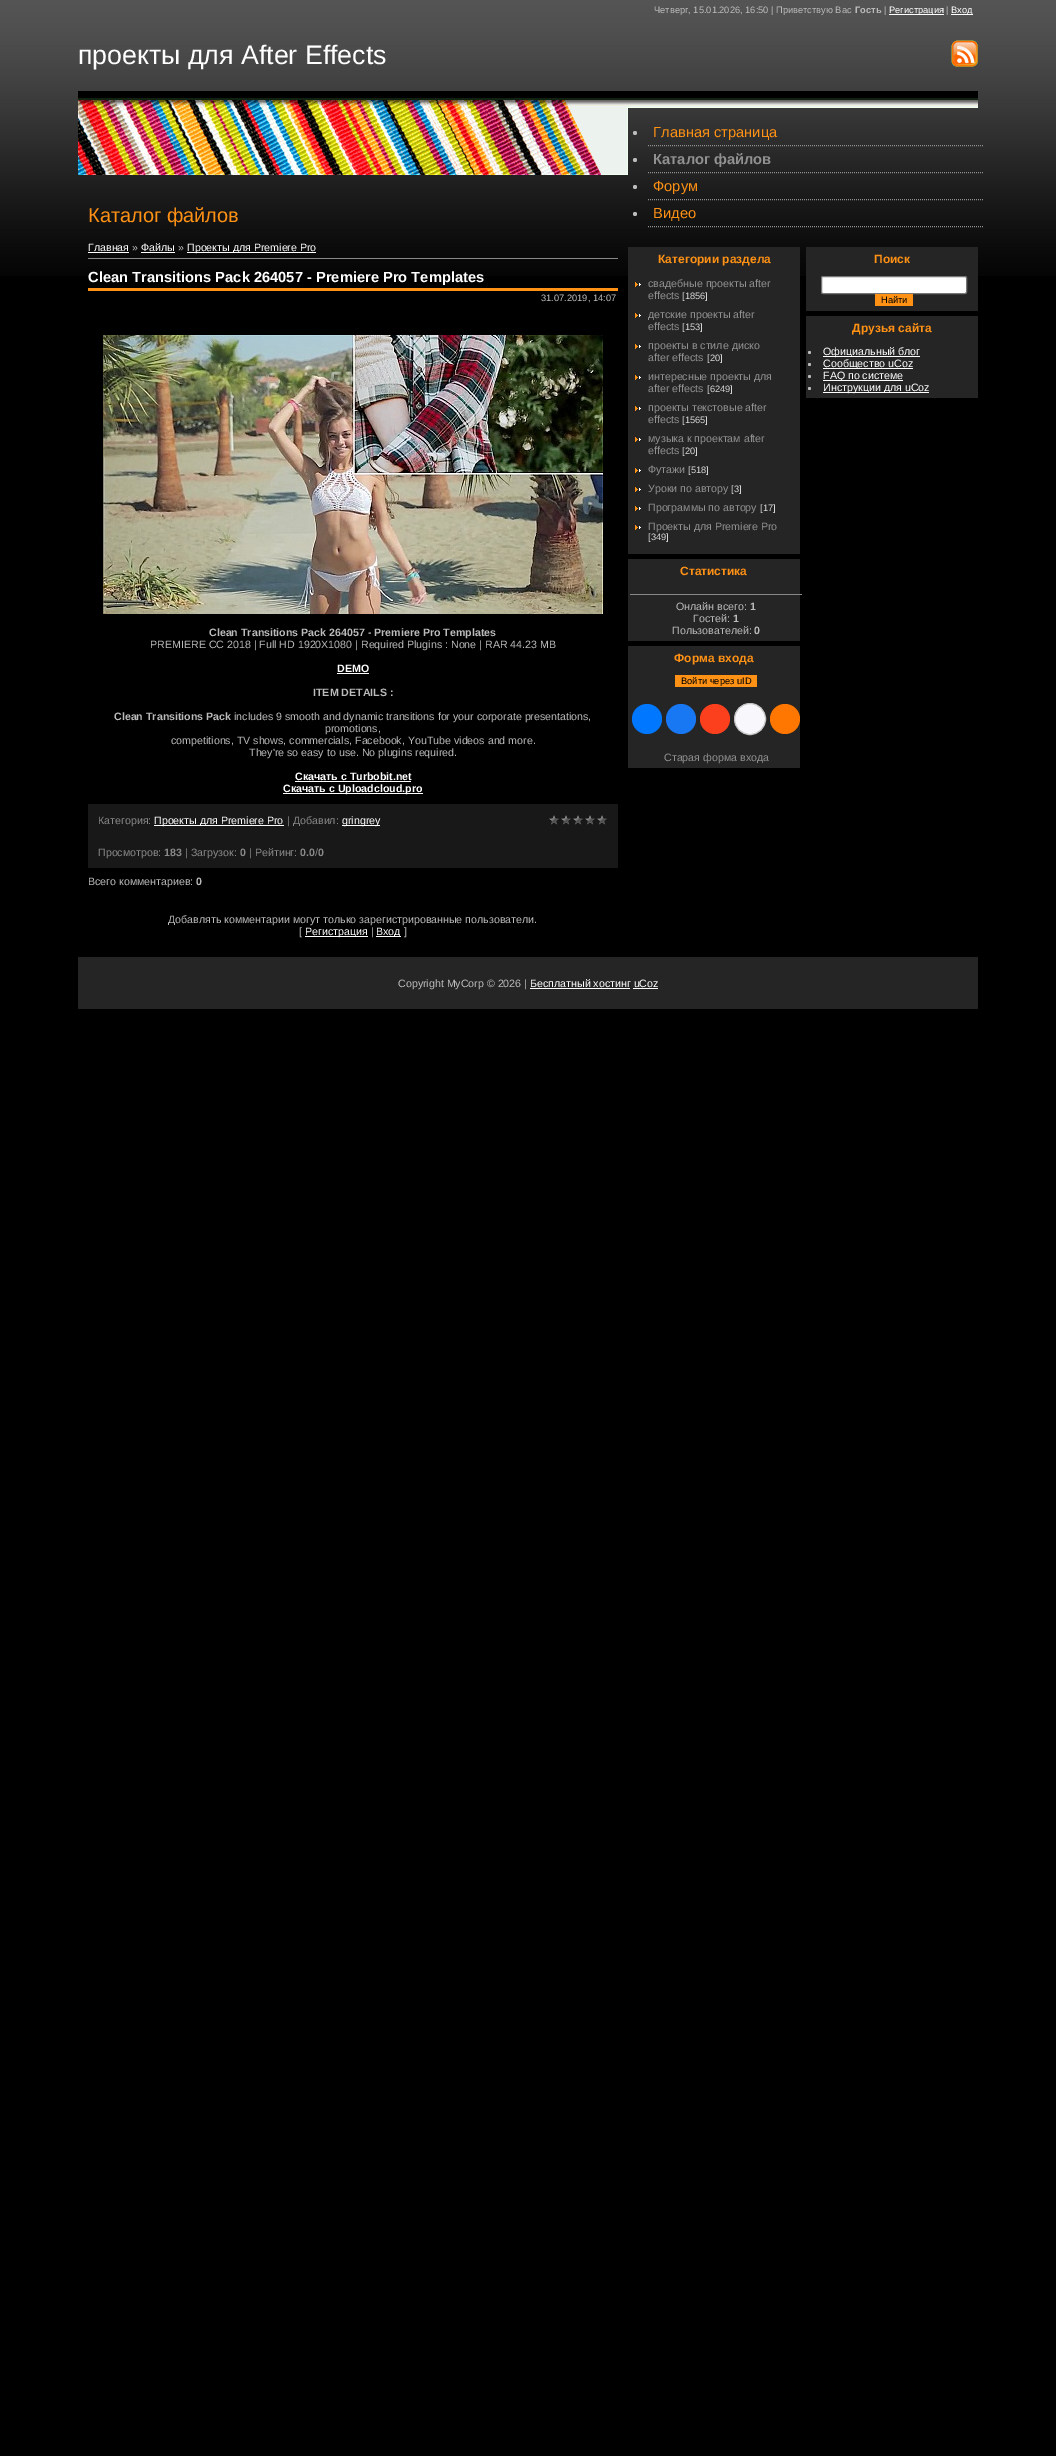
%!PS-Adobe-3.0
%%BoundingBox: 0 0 1056 2456
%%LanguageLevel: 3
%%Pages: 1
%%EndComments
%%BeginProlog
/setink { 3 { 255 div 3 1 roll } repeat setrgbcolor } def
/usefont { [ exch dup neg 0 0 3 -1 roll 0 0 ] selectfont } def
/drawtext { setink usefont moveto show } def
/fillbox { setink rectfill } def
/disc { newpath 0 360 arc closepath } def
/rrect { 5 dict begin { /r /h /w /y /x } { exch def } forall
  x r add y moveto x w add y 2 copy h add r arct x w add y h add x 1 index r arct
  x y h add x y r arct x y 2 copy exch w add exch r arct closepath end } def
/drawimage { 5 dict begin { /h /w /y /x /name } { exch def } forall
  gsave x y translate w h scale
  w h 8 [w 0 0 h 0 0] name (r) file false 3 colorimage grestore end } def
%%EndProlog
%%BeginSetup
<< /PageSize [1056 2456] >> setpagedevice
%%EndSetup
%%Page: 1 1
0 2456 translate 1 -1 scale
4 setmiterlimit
0 0 1056 2456 0 0 0 fillbox
(assets/img1.rgb) 0 0 1056 276 drawimage
(Четверг, 15.01.2026, 16:50 | Приветствую Вас) 654 13 /LiberationSans-Regular 9.3 187 187 187 drawtext
(Гость) 855 13 /LiberationSans-Bold 9.3 187 187 187 drawtext
(|) 884 13 /LiberationSans-Regular 9.3 187 187 187 drawtext
889 14 55 1 255 255 255 fillbox
(Регистрация) 889 13 /LiberationSans-Regular 9.3 255 255 255 drawtext
(|) 946 13 /LiberationSans-Regular 9.3 187 187 187 drawtext
951 14 22 1 255 255 255 fillbox
(Вход) 951 13 /LiberationSans-Regular 9.3 255 255 255 drawtext
(проекты для After Effects) 78 64 /LiberationSans-Regular 26.75 255 255 255 drawtext
(assets/img2.rgb) 951 40 27 27 drawimage
(assets/img3.rgb) 78 91 900 84 drawimage
(Каталог файлов) 88 222 /LiberationSans-Regular 20 255 145 21 drawtext
(Главная) 88 251 /LiberationSans-Regular 10.65 255 255 255 drawtext
88 252 41 1 255 255 255 fillbox
(») 132 251 /LiberationSans-Regular 10.65 187 187 187 drawtext
(Файлы) 141 251 /LiberationSans-Regular 10.65 255 255 255 drawtext
141 252 34 1 255 255 255 fillbox
(») 178 251 /LiberationSans-Regular 10.65 187 187 187 drawtext
187 252 129 1 255 255 255 fillbox
(Проекты для Premiere Pro) 187 251 /LiberationSans-Regular 10.65 255 255 255 drawtext
88 258 530 1 137 137 137 fillbox
(Clean Transitions Pack 264057 - Premiere Pro Templates) 88 282 /LiberationSans-Bold 14.7 255 255 255 drawtext
88 288 530 3 255 145 21 fillbox
(31.07.2019, 14:07) 541 301 /LiberationSans-Regular 9.3 187 187 187 drawtext
(assets/img4.rgb) 103 335 500 279 drawimage
(Clean Transitions Pack 264057 - Premiere Pro Templates) 209 636 /LiberationSans-Bold 10.65 187 187 187 drawtext
(PREMIERE CC 2018 | Full HD 1920X1080 | Required Plugins : None | RAR 44.23 MB) 150 648 /LiberationSans-Regular 10.65 187 187 187 drawtext
(DEMO) 337 672 /LiberationSans-Bold 10.65 255 255 255 drawtext
337 673 32 1 255 255 255 fillbox
(ITEM DETAILS :) 313 696 /LiberationSans-Bold 10.65 187 187 187 drawtext
(Clean Transitions Pack) 114 720 /LiberationSans-Bold 10.65 187 187 187 drawtext
(includes 9 smooth and dynamic transitions for your corporate presentations,) 234 720 /LiberationSans-Regular 10.65 187 187 187 drawtext
(promotions,) 325 732 /LiberationSans-Regular 10.65 187 187 187 drawtext
(competitions, TV shows, commercials, Facebook, YouTube videos and more.) 171 744 /LiberationSans-Regular 10.65 187 187 187 drawtext
(They're so easy to use. No plugins required.) 249 756 /LiberationSans-Regular 10.65 187 187 187 drawtext
(Скачать с Turbobit.net) 295 780 /LiberationSans-Bold 10.65 255 255 255 drawtext
295 781 116 1 255 255 255 fillbox
283 793 140 1 255 255 255 fillbox
(Скачать с Uploadcloud.pro) 283 792 /LiberationSans-Bold 10.65 255 255 255 drawtext
88 804 530 64 24 24 24 fillbox
(Категория:) 98 824 /LiberationSans-Regular 10.65 137 137 137 drawtext
154 825 130 1 255 255 255 fillbox
(Проекты для Premiere Pro) 154 824 /LiberationSans-Regular 10.65 255 255 255 drawtext
(| Добавил:) 287 824 /LiberationSans-Regular 10.65 137 137 137 drawtext
342 825 38 1 255 255 255 fillbox
(gringrey) 342 824 /LiberationSans-Regular 10.65 255 255 255 drawtext
(assets/img5.rgb) 549 815 58 10 drawimage
(Просмотров:) 98 856 /LiberationSans-Regular 10.65 137 137 137 drawtext
(183) 164 856 /LiberationSans-Bold 10.65 137 137 137 drawtext
(| Загрузок:) 185 856 /LiberationSans-Regular 10.65 137 137 137 drawtext
(0) 240 856 /LiberationSans-Bold 10.65 137 137 137 drawtext
(| Рейтинг:) 249 856 /LiberationSans-Regular 10.65 137 137 137 drawtext
(0.0 0) 300 856 /LiberationSans-Bold 10.65 137 137 137 drawtext
(/) 315 856 /LiberationSans-Regular 10.65 137 137 137 drawtext
(Всего комментариев:) 88 885 /LiberationSans-Regular 10.65 187 187 187 drawtext
(0) 196 885 /LiberationSans-Bold 10.65 187 187 187 drawtext
(Добавлять комментарии могут только зарегистрированные пользователи.) 168 923 /LiberationSans-Regular 10.65 187 187 187 drawtext
([) 299 935 /LiberationSans-Regular 10.65 187 187 187 drawtext
305 936 63 1 255 255 255 fillbox
(Регистрация) 305 935 /LiberationSans-Regular 10.65 255 255 255 drawtext
(|) 371 935 /LiberationSans-Regular 10.65 187 187 187 drawtext
376 936 25 1 255 255 255 fillbox
(Вход) 376 935 /LiberationSans-Regular 10.65 255 255 255 drawtext
(]) 404 935 /LiberationSans-Regular 10.65 187 187 187 drawtext
145 145 145 setink
[1 1] 0 setdash
648 145.5 moveto 983 145.5 lineto stroke
187 187 187 setink
635 133 2 disc fill
(Главная страница) 653 137 /LiberationSans-Regular 14.7 255 145 21 drawtext
145 145 145 setink
648 172.5 moveto 983 172.5 lineto stroke
187 187 187 setink
635 160 2 disc fill
(Каталог файлов) 653 164 /LiberationSans-Bold 14.7 145 145 145 drawtext
648 199.5 moveto 983 199.5 lineto stroke
187 187 187 setink
635 187 2 disc fill
(Форум) 653 191 /LiberationSans-Regular 14.7 255 145 21 drawtext
145 145 145 setink
648 226.5 moveto 983 226.5 lineto stroke
187 187 187 setink
635 214 2 disc fill
(Видео) 653 218 /LiberationSans-Regular 14.7 255 145 21 drawtext
628 247 172 307 37 37 37 fillbox
(Категории раздела) 658 263 /LiberationSans-Bold 12 255 145 21 drawtext
(assets/img6.rgb) 635 282 6 5 drawimage
(свадебные проекты after) 648 287 /LiberationSans-Regular 10.65 145 145 145 drawtext
(effects) 648 299 /LiberationSans-Regular 10.65 145 145 145 drawtext
([1856]) 682 299 /LiberationSans-Regular 9.3 216 213 213 drawtext
(assets/img6.rgb) 635 313 6 5 drawimage
(детские проекты after) 648 318 /LiberationSans-Regular 10.65 145 145 145 drawtext
(effects) 648 330 /LiberationSans-Regular 10.65 145 145 145 drawtext
([153]) 682 330 /LiberationSans-Regular 9.3 216 213 213 drawtext
(assets/img6.rgb) 635 344 6 5 drawimage
(проекты в стиле диско) 648 349 /LiberationSans-Regular 10.65 145 145 145 drawtext
(after effects) 648 361 /LiberationSans-Regular 10.65 145 145 145 drawtext
([20]) 707 361 /LiberationSans-Regular 9.3 216 213 213 drawtext
(assets/img6.rgb) 635 375 6 5 drawimage
(интересные проекты для) 648 380 /LiberationSans-Regular 10.65 145 145 145 drawtext
(after effects) 648 392 /LiberationSans-Regular 10.65 145 145 145 drawtext
([6249]) 707 392 /LiberationSans-Regular 9.3 216 213 213 drawtext
(assets/img6.rgb) 635 406 6 5 drawimage
(проекты текстовые after) 648 411 /LiberationSans-Regular 10.65 145 145 145 drawtext
(effects) 648 423 /LiberationSans-Regular 10.65 145 145 145 drawtext
([1565]) 682 423 /LiberationSans-Regular 9.3 216 213 213 drawtext
(assets/img6.rgb) 635 437 6 5 drawimage
(музыка к проектам after) 648 442 /LiberationSans-Regular 10.65 145 145 145 drawtext
(effects) 648 454 /LiberationSans-Regular 10.65 145 145 145 drawtext
([20]) 682 454 /LiberationSans-Regular 9.3 216 213 213 drawtext
(assets/img6.rgb) 635 468 6 5 drawimage
(Футажи) 648 473 /LiberationSans-Regular 10.65 145 145 145 drawtext
([518]) 688 473 /LiberationSans-Regular 9.3 216 213 213 drawtext
(assets/img6.rgb) 635 487 6 5 drawimage
(Уроки по автору) 648 492 /LiberationSans-Regular 10.65 145 145 145 drawtext
([3]) 731 492 /LiberationSans-Regular 9.3 216 213 213 drawtext
(assets/img6.rgb) 635 506 6 5 drawimage
(Программы по автору) 648 511 /LiberationSans-Regular 10.65 145 145 145 drawtext
([17]) 760 511 /LiberationSans-Regular 9.3 216 213 213 drawtext
(assets/img6.rgb) 635 525 6 5 drawimage
(Проекты для Premiere Pro) 648 530 /LiberationSans-Regular 10.65 145 145 145 drawtext
([349]) 648 540 /LiberationSans-Regular 9.3 216 213 213 drawtext
628 559 172 82 37 37 37 fillbox
(Статистика) 680 575 /LiberationSans-Bold 12 255 145 21 drawtext
630 594 172 1 137 137 137 fillbox
(Онлайн всего:) 676 610 /LiberationSans-Regular 10.65 187 187 187 drawtext
(1) 750 610 /LiberationSans-Bold 10.65 187 187 187 drawtext
(Гостей:) 693 622 /LiberationSans-Regular 10.65 187 187 187 drawtext
(1) 733 622 /LiberationSans-Bold 10.65 187 187 187 drawtext
(Пользователей:) 672 634 /LiberationSans-Regular 10.65 187 187 187 drawtext
(0) 754 634 /LiberationSans-Bold 10.65 187 187 187 drawtext
628 646 172 122 37 37 37 fillbox
(Форма входа) 674 662 /LiberationSans-Bold 12 255 145 21 drawtext
675 675 82 12 255 145 21 fillbox
(Войти через uID) 681 684 /LiberationSans-Regular 9.3 0 0 0 drawtext
0 119 255 setink
647 719 15 disc fill
24 119 242 setink
681 719 15 disc fill
252 63 29 setink
715 719 15 disc fill
248 248 252 setink
750 719 15.5 disc gsave fill grestore
196 196 196 setink
[] 0 setdash
stroke
255 119 0 setink
785 719 15 disc fill
(Старая форма входа) 664 761 /LiberationSans-Regular 10.65 145 145 145 drawtext
806 247 172 64 37 37 37 fillbox
(Поиск) 874 263 /LiberationSans-Bold 12 255 145 21 drawtext
255 255 255 setink
821.5 276.5 145 17 1.5 rrect gsave fill grestore
118 118 118 setink
stroke
875 294 38 12 255 145 21 fillbox
(Найти) 881 303 /LiberationSans-Regular 9.3 0 0 0 drawtext
806 316 172 82 37 37 37 fillbox
(Друзья сайта) 852 332 /LiberationSans-Bold 12 255 145 21 drawtext
187 187 187 setink
809.5 352.5 1.5 disc fill
823 356 97 1 255 255 255 fillbox
(Официальный блог) 823 355 /LiberationSans-Regular 10.65 255 255 255 drawtext
187 187 187 setink
809.5 364.5 1.5 disc fill
823 368 90 1 255 255 255 fillbox
(Сообщество uCoz) 823 367 /LiberationSans-Regular 10.65 255 255 255 drawtext
187 187 187 setink
809.5 376.5 1.5 disc fill
823 380 80 1 255 255 255 fillbox
(FAQ по системе) 823 379 /LiberationSans-Regular 10.65 255 255 255 drawtext
187 187 187 setink
809.5 388.5 1.5 disc fill
823 392 106 1 255 255 255 fillbox
(Инструкции для uCoz) 823 391 /LiberationSans-Regular 10.65 255 255 255 drawtext
78 957 900 52 37 37 37 fillbox
(Copyright MyCorp © 2026 |) 398 987 /LiberationSans-Regular 10.65 187 187 187 drawtext
(Бесплатный хостинг uCoz) 530 987 /LiberationSans-Regular 10.65 255 255 255 drawtext
530 988 100 1 255 255 255 fillbox
633 988 25 1 255 255 255 fillbox
showpage
%%EOF
